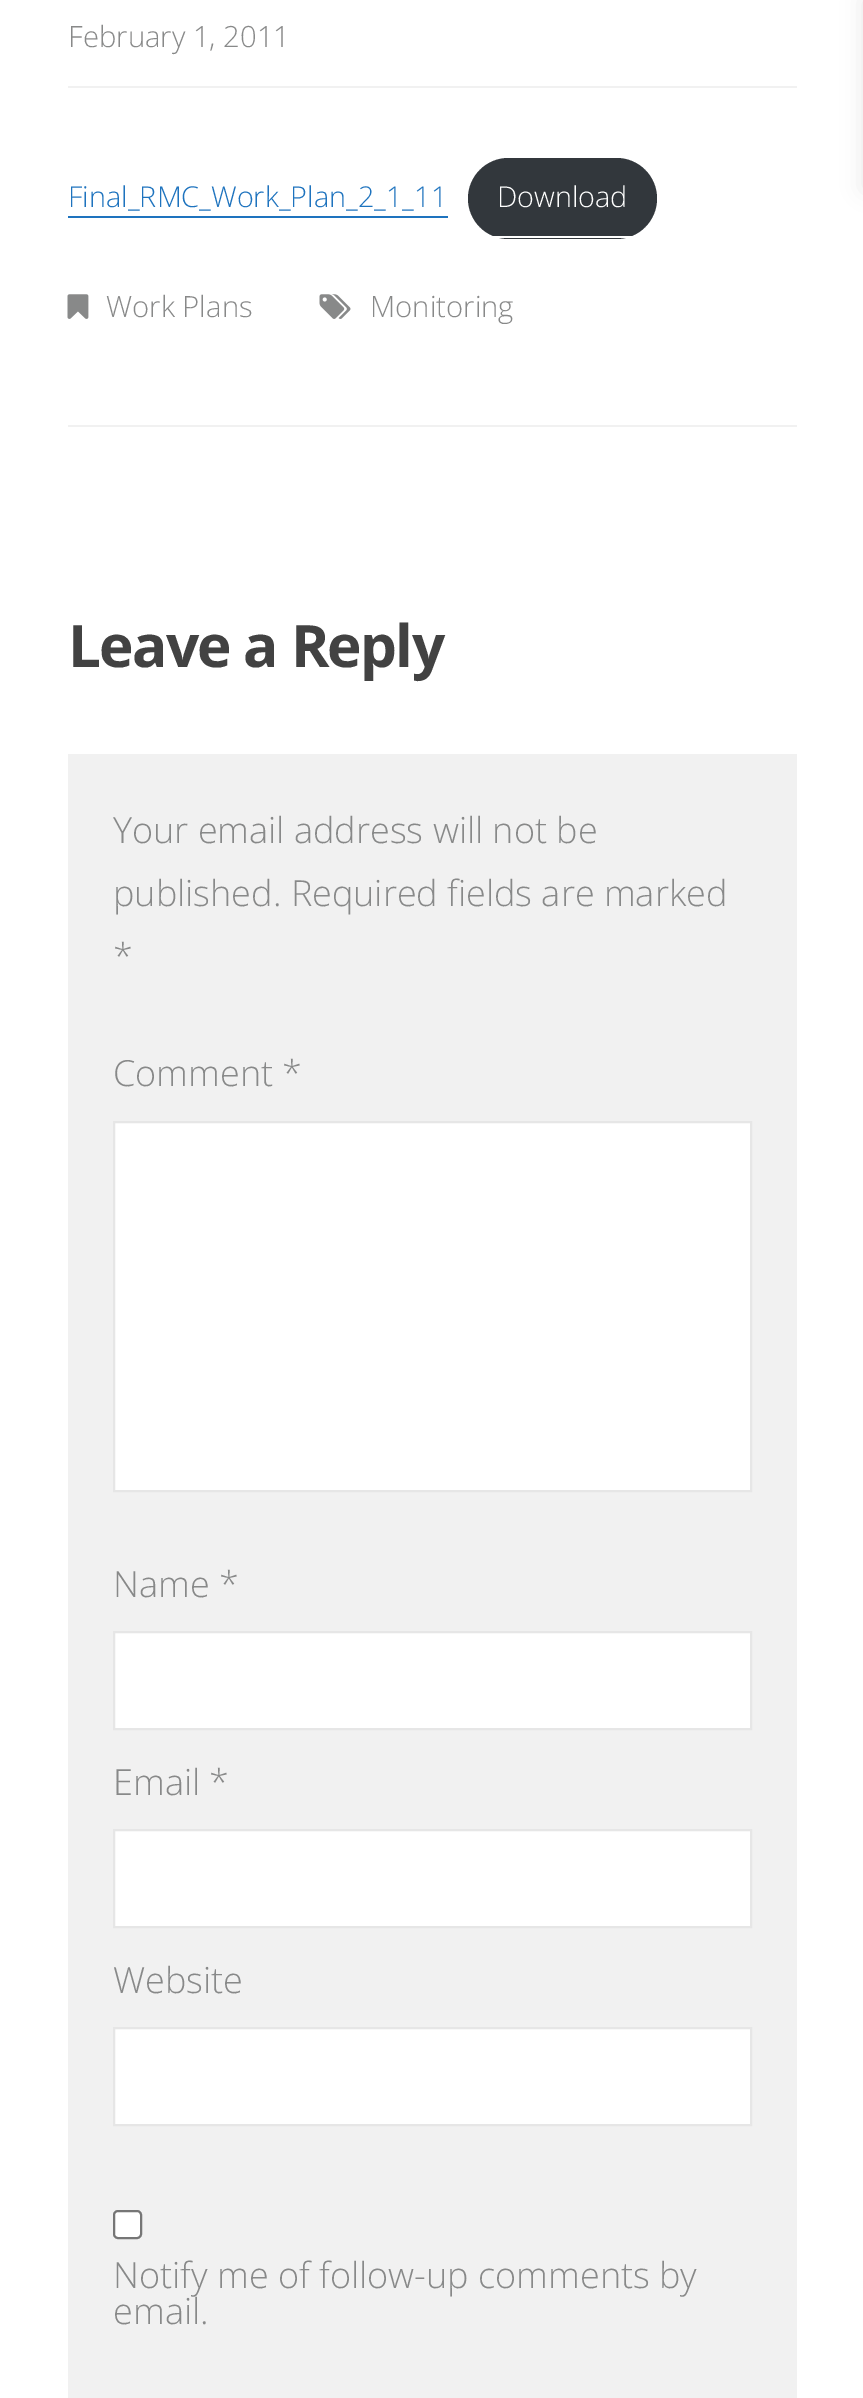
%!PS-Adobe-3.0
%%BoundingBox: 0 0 863 2398
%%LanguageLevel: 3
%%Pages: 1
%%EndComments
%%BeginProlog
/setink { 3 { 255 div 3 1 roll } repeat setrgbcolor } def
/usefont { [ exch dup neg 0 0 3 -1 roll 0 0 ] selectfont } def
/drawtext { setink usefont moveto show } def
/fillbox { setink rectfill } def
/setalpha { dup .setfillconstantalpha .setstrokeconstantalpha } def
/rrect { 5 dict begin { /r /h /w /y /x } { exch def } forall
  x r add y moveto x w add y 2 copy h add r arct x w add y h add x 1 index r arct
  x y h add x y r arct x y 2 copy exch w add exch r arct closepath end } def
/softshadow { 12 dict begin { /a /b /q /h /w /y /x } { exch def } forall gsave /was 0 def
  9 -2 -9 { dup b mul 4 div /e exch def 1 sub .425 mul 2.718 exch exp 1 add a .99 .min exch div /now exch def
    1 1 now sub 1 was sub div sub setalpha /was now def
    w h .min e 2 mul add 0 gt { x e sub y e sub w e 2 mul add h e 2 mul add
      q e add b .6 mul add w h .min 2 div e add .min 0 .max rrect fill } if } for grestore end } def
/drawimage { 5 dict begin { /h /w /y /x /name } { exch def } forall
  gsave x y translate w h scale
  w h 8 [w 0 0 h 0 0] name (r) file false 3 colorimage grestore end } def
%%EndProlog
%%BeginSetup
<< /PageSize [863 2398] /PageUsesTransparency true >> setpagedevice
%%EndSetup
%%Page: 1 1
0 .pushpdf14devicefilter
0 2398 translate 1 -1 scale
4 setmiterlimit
0 0 863 2398 255 255 255 fillbox
68 425 729 2 241 241 241 fillbox
68 86 729 2 241 241 241 fillbox
(February 1, 2011) 68 47 /OpenSans-Light 29.25 136 137 137 drawtext
(Final_RMC_Work_Plan_2_1_11) 68 207 /OpenSans-Light 28.75 30 115 190 drawtext
68 216 380 2 30 115 190 fillbox
50 55 60 setink
468 158 189 81 40.5 rrect fill
488 236 149 2 255 255 255 fillbox
(Download) 497 207 /OpenSans-Light 28.75 255 255 255 drawtext
(assets/img1.rgb) 67 294 22 25 drawimage
(Work Plans) 106 317 /OpenSans-Light 29.25 136 137 137 drawtext
(assets/img2.rgb) 319 294 32 25 drawimage
(Monitoring) 370 317 /OpenSans-Light 29.25 136 137 137 drawtext
/OpenSans-Bold 58.5 usefont
66 66 66 setink
68 667 moveto -1.75 0 (Leave a Reply) ashow
68 754 729 1644 241 241 241 fillbox
(Your email address will not be) 113 843 /OpenSans-Light 36 136 137 137 drawtext
(published. Required fields are marked) 113 906 /OpenSans-Light 36 136 137 137 drawtext
(*) 113 969 /OpenSans-Light 36 136 137 137 drawtext
(Comment *) 113 1086 /OpenSans-Light 36 136 137 137 drawtext
255 255 255 setink
114 1122 moveto 751 1122 lineto 751 1491 lineto 114 1491 lineto closepath gsave fill grestore
230 230 230 setink
2 setlinewidth
stroke
(Name *) 113 1597 /OpenSans-Light 36 136 137 137 drawtext
255 255 255 setink
114 1632 moveto 751 1632 lineto 751 1729 lineto 114 1729 lineto closepath gsave fill grestore
230 230 230 setink
stroke
(Email *) 113 1795 /OpenSans-Light 36 136 137 137 drawtext
255 255 255 setink
114 1830 moveto 751 1830 lineto 751 1927 lineto 114 1927 lineto closepath gsave fill grestore
230 230 230 setink
stroke
(Website) 113 1993 /OpenSans-Light 36 136 137 137 drawtext
255 255 255 setink
114 2028 moveto 751 2028 lineto 751 2125 lineto 114 2125 lineto closepath gsave fill grestore
230 230 230 setink
stroke
255 255 255 setink
114 2211 27 27 4 rrect gsave fill grestore
118 118 118 setink
stroke
(Notify me of follow-up comments by) 113 2288 /OpenSans-Light 36 136 137 137 drawtext
(email.) 113 2324 /OpenSans-Light 36 136 137 137 drawtext
0 0 0 setink
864 0 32 189 0 11 0.1 softshadow
.poppdf14devicefilter showpage
%%EOF
